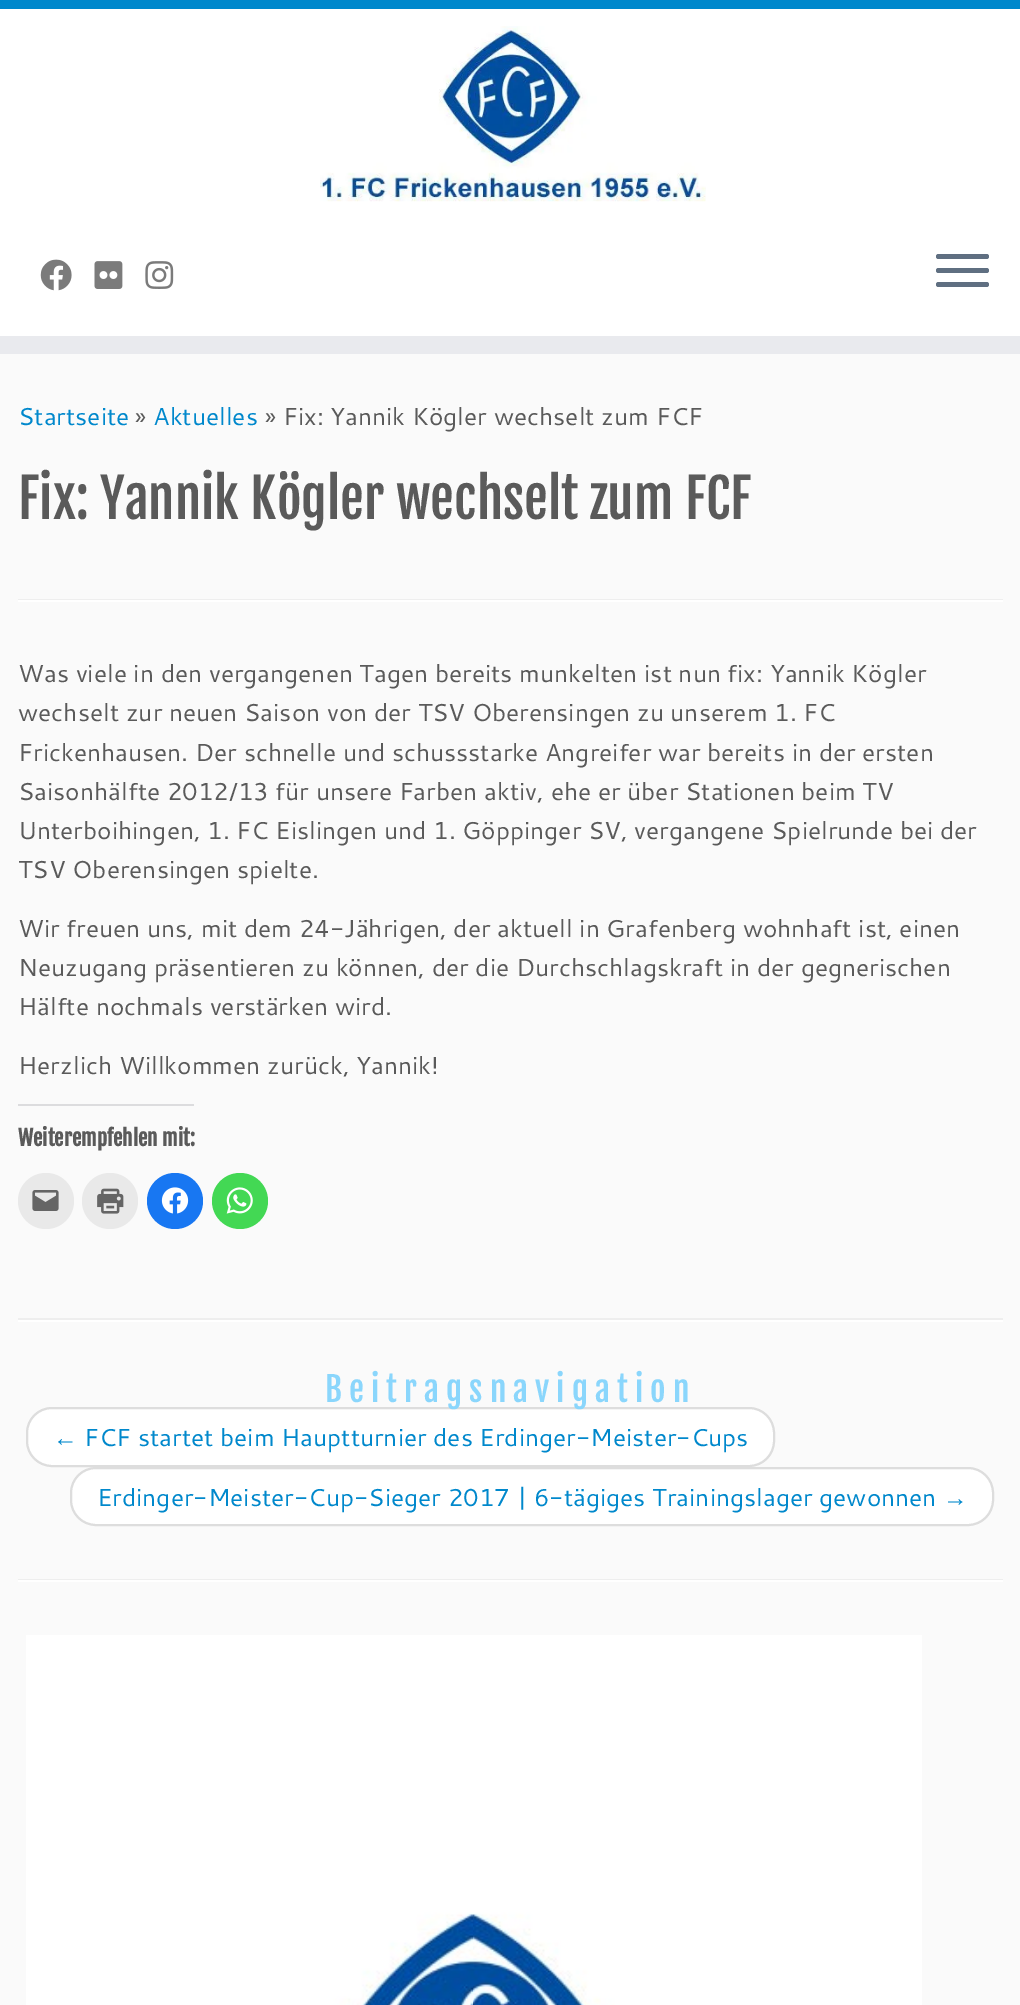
%!PS-Adobe-3.0
%%BoundingBox: 0 0 1020 2005
%%LanguageLevel: 3
%%Pages: 1
%%EndComments
%%BeginProlog
/setink { 3 { 255 div 3 1 roll } repeat setrgbcolor } def
/usefont { [ exch dup neg 0 0 3 -1 roll 0 0 ] selectfont } def
/drawtext { setink usefont moveto show } def
/fillbox { setink rectfill } def
/disc { newpath 0 360 arc closepath } def
/rrect { 5 dict begin { /r /h /w /y /x } { exch def } forall
  x r add y moveto x w add y 2 copy h add r arct x w add y h add x 1 index r arct
  x y h add x y r arct x y 2 copy exch w add exch r arct closepath end } def
/drawimage { 5 dict begin { /h /w /y /x /name } { exch def } forall
  gsave x y translate w h scale
  w h 8 [w 0 0 h 0 0] name (r) file false 3 colorimage grestore end } def
%%EndProlog
%%BeginSetup
<< /PageSize [1020 2005] >> setpagedevice
%%EndSetup
%%Page: 1 1
0 2005 translate 1 -1 scale
4 setmiterlimit
0 0 1020 2005 250 250 250 fillbox
0 9 1020 327 255 255 255 fillbox
0 0 1020 9 0 136 204 fillbox
0 336 1020 18 233 234 238 fillbox
(assets/img1.rgb) 320 26 386 176 drawimage
(assets/img2.rgb) 40 259 32 32 drawimage
(assets/img3.rgb) 94 261 29 28 drawimage
(assets/img4.rgb) 145 261 29 28 drawimage
95 111 129 setink
936 254 53 5 2.5 rrect fill
936 268 53 5 2.5 rrect fill
936 282 53 5 2.5 rrect fill
(Startseite) 18 425 /Cantarell-Regular 24.5 0 136 204 drawtext
(») 135 425 /Cantarell-Regular 24.5 90 90 90 drawtext
(Aktuelles) 153 425 /Cantarell-Regular 24.5 0 136 204 drawtext
(» Fix: Yannik Kögler wechselt zum FCF) 265 425 /Cantarell-Regular 24.5 90 90 90 drawtext
(Fix: Yannik Kögler wechselt zum FCF) 18 519 /FjallaOne-Regular 53.25 90 90 90 drawtext
18 599 985 1 238 238 238 fillbox
18 600 985 2 255 255 255 fillbox
(Was viele in den vergangenen Tagen bereits munkelten ist nun fix: Yannik Kögler) 18 682 /Cantarell-Regular 24.5 90 90 90 drawtext
(wechselt zur neuen Saison von der TSV Oberensingen zu unserem 1. FC) 18 721 /Cantarell-Regular 24.5 90 90 90 drawtext
(Frickenhausen. Der schnelle und schussstarke Angreifer war bereits in der ersten) 18 761 /Cantarell-Regular 24.5 90 90 90 drawtext
(Saisonhälfte 2012/13 für unsere Farben aktiv, ehe er über Stationen beim TV) 18 800 /Cantarell-Regular 24.5 90 90 90 drawtext
(Unterboihingen, 1. FC Eislingen und 1. Göppinger SV, vergangene Spielrunde bei der) 18 839 /Cantarell-Regular 24.5 90 90 90 drawtext
(TSV Oberensingen spielte.) 18 878 /Cantarell-Regular 24.5 90 90 90 drawtext
(Wir freuen uns, mit dem 24-Jährigen, der aktuell in Grafenberg wohnhaft ist, einen) 18 937 /Cantarell-Regular 24.5 90 90 90 drawtext
(Neuzugang präsentieren zu können, der die Durchschlagskraft in der gegnerischen) 18 976 /Cantarell-Regular 24.5 90 90 90 drawtext
(Hälfte nochmals verstärken wird.) 18 1015 /Cantarell-Regular 24.5 90 90 90 drawtext
(Herzlich Willkommen zurück, Yannik!) 18 1074 /Cantarell-Regular 24.5 90 90 90 drawtext
18 1104 176 2 220 220 222 fillbox
(Weiterempfehlen mit:) 18 1146 /FjallaOne-Bold 21 90 90 90 drawtext
233 233 233 setink
46 1201 28 disc fill
(assets/img5.rgb) 32 1190 27 21 drawimage
110 1201 28 disc fill
(assets/img6.rgb) 97 1188 27 26 drawimage
24 119 242 setink
175 1201 28 disc fill
(assets/img7.rgb) 161 1187 28 27 drawimage
67 216 84 setink
240 1201 28 disc fill
(assets/img8.rgb) 226 1187 27 27 drawimage
18 1318 985 2 238 238 238 fillbox
18 1320 985 2 255 255 255 fillbox
27 1408 747 58 25 rrect gsave fill grestore
221 221 221 setink
2 setlinewidth
stroke
/FjallaOne-Regular 33.6 usefont
138 214 252 setink
325 1402 moveto 7 0 (Beitragsnavigation) ashow
(←) 53 1446 /LiberationSerif-Regular 24.5 0 136 204 drawtext
(FCF startet beim Hauptturnier des Erdinger-Meister-Cups) 84 1446 /Cantarell-Regular 24.5 0 136 204 drawtext
255 255 255 setink
71 1468 922 57 25 rrect gsave fill grestore
221 221 221 setink
stroke
(Erdinger-Meister-Cup-Sieger 2017 | 6-tägiges Trainingslager gewonnen) 97 1506 /Cantarell-Regular 24.5 0 136 204 drawtext
(→) 943 1506 /LiberationSerif-Regular 24.5 0 136 204 drawtext
18 1579 985 1 238 238 238 fillbox
18 1580 985 2 255 255 255 fillbox
(assets/img9.rgb) 26 1635 896 370 drawimage
showpage
%%EOF
